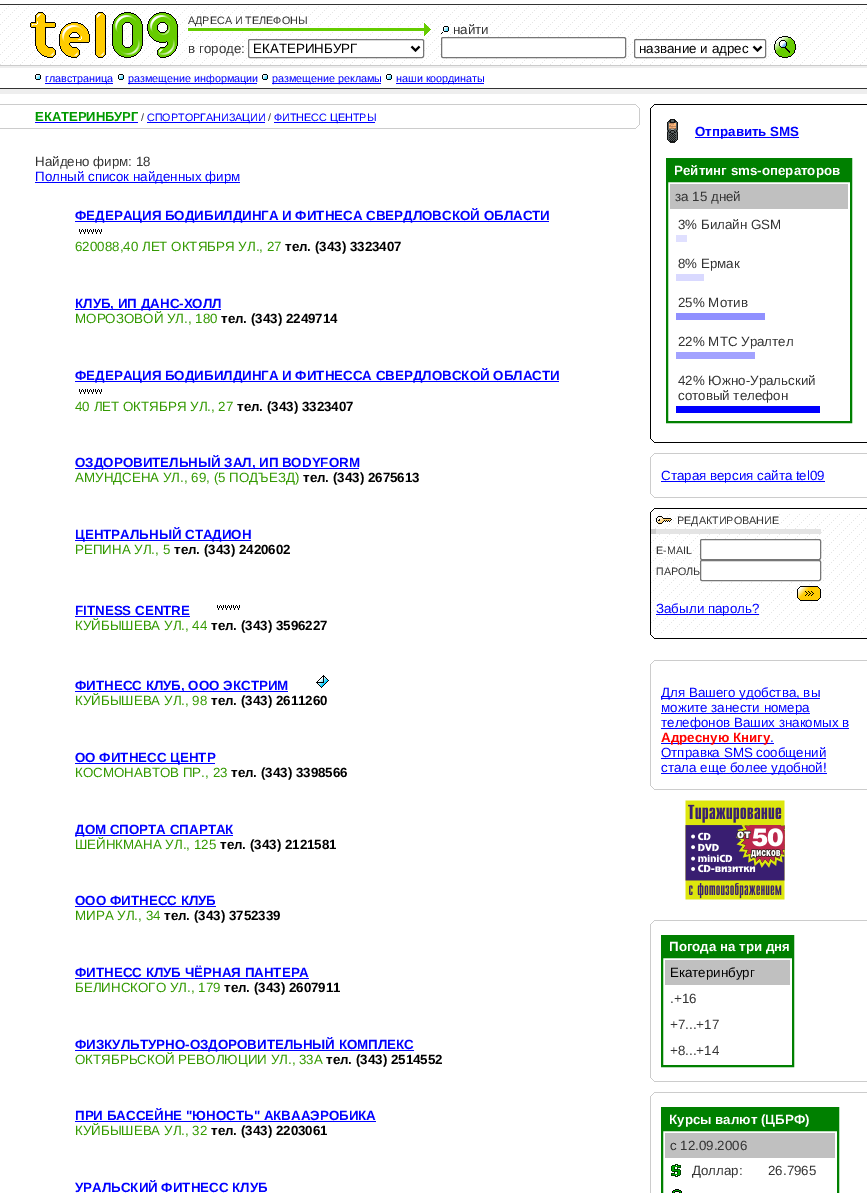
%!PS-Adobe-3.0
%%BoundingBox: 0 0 867 1193
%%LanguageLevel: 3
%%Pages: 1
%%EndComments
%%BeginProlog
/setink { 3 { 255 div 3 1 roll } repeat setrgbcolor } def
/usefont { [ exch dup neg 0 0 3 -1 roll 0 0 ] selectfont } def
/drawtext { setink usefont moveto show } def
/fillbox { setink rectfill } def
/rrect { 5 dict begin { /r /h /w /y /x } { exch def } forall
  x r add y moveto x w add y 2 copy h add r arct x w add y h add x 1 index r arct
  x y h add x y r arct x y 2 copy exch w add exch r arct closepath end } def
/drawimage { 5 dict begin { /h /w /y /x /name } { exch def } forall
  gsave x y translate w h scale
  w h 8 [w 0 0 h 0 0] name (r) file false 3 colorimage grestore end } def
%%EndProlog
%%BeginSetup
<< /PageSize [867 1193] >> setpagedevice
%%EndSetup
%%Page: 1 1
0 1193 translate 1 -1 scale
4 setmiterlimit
0 0 867 1193 255 255 255 fillbox
0 4 867 1 51 51 51 fillbox
(assets/img1.rgb) 0 6 867 59 drawimage
(assets/img2.rgb) 30 12 148 46 drawimage
(АДРЕСА И ТЕЛЕФОНЫ) 188 24 /LiberationSans-Regular 10.75 51 51 51 drawtext
(assets/img3.rgb) 424 23 7 13 drawimage
188 28 236 3 102 204 0 fillbox
(в городе:) 188 53 /LiberationSans-Regular 13.35 51 51 51 drawtext
255 255 255 setink
248.5 39.5 175 18 1.5 rrect gsave fill grestore
118 118 118 setink
stroke
0 0 0 setink
2 setlinewidth
411.5 46.5 moveto 415.5 50.5 lineto 419.5 46.5 lineto stroke
(ЕКАТЕРИНБУРГ) 253 53 /LiberationSans-Regular 13.35 0 0 0 drawtext
(assets/img4.rgb) 441 26 8 8 drawimage
(найти) 453 34 /LiberationSans-Regular 13.35 51 51 51 drawtext
(assets/img5.rgb) 774 36 22 22 drawimage
255 255 255 setink
441.5 37.5 184 20 1.5 rrect gsave fill grestore
118 118 118 setink
1 setlinewidth
stroke
255 255 255 setink
634.5 39.5 131 18 1.5 rrect gsave fill grestore
118 118 118 setink
stroke
0 0 0 setink
2 setlinewidth
753.5 46.5 moveto 757.5 50.5 lineto 761.5 46.5 lineto stroke
(название и адрес) 639 53 /LiberationSans-Regular 13.35 0 0 0 drawtext
0 65 867 1 204 204 204 fillbox
0 66 867 2 238 238 238 fillbox
(assets/img6.rgb) 35 74 6 6 drawimage
45 83 68 1 0 0 255 fillbox
(главстраница) 45 82 /LiberationSans-Regular 10.75 0 0 255 drawtext
(assets/img6.rgb) 118 74 6 6 drawimage
128 83 129 1 0 0 255 fillbox
(размещение информации) 128 82 /LiberationSans-Regular 10.75 0 0 255 drawtext
(assets/img6.rgb) 262 74 6 6 drawimage
272 83 109 1 0 0 255 fillbox
(размещение рекламы) 272 82 /LiberationSans-Regular 10.75 0 0 255 drawtext
(assets/img6.rgb) 386 74 6 6 drawimage
396 83 88 1 0 0 255 fillbox
(наши координаты) 396 82 /LiberationSans-Regular 10.75 0 0 255 drawtext
0 88 867 1 51 51 51 fillbox
0 89 867 5 238 238 238 fillbox
0 104 640 1 204 204 204 fillbox
(assets/img7.rgb) 636 104 4 5 drawimage
(ЕКАТЕРИНБУРГ) 35 121 /LiberationSans-Bold 13 0 153 0 drawtext
35 122 103 1 0 0 255 fillbox
(/) 141 121 /LiberationSans-Regular 10.75 51 51 51 drawtext
147 122 118 1 0 0 255 fillbox
(СПОРТОРГАНИЗАЦИИ) 147 121 /LiberationSans-Regular 10.75 0 0 255 drawtext
(/) 268 121 /LiberationSans-Regular 10.75 51 51 51 drawtext
274 122 101 1 0 0 255 fillbox
(ФИТНЕСС ЦЕНТРЫ) 274 121 /LiberationSans-Regular 10.75 0 0 255 drawtext
639 109 1 15 204 204 204 fillbox
0 128 640 1 204 204 204 fillbox
(assets/img8.rgb) 636 124 4 5 drawimage
(Найдено фирм: 18) 35 166 /LiberationSans-Regular 13.35 51 51 51 drawtext
35 182 205 1 0 0 255 fillbox
(Полный список найденных фирм) 35 181 /LiberationSans-Regular 13.35 0 0 255 drawtext
75 221 474 1 0 0 255 fillbox
(ФЕДЕРАЦИЯ БОДИБИЛДИНГА И ФИТНЕСА СВЕРДЛОВСКОЙ ОБЛАСТИ) 75 220 /LiberationSans-Bold 13.35 0 0 255 drawtext
(assets/img9.rgb) 79 229 23 5 drawimage
(620088,40 ЛЕТ ОКТЯБРЯ УЛ., 27) 75 251 /LiberationSans-Regular 13.35 51 153 0 drawtext
(тел. \(343\) 3323407) 285 251 /LiberationSans-Bold 13.35 0 0 0 drawtext
75 309 146 1 0 0 255 fillbox
(КЛУБ, ИП ДАНС-ХОЛЛ) 75 308 /LiberationSans-Bold 13.35 0 0 255 drawtext
(МОРОЗОВОЙ УЛ., 180) 75 323 /LiberationSans-Regular 13.35 51 153 0 drawtext
(тел. \(343\) 2249714) 221 323 /LiberationSans-Bold 13.35 0 0 0 drawtext
75 381 484 1 0 0 255 fillbox
(ФЕДЕРАЦИЯ БОДИБИЛДИНГА И ФИТНЕССА СВЕРДЛОВСКОЙ ОБЛАСТИ) 75 380 /LiberationSans-Bold 13.35 0 0 255 drawtext
(assets/img9.rgb) 79 389 23 5 drawimage
(40 ЛЕТ ОКТЯБРЯ УЛ., 27) 75 411 /LiberationSans-Regular 13.35 51 153 0 drawtext
(тел. \(343\) 3323407) 237 411 /LiberationSans-Bold 13.35 0 0 0 drawtext
75 468 284 1 0 0 255 fillbox
(ОЗДОРОВИТЕЛЬНЫЙ ЗАЛ, ИП BODYFORM) 75 467 /LiberationSans-Bold 13.35 0 0 255 drawtext
(АМУНДСЕНА УЛ., 69, \(5 ПОДЪЕЗД\)) 75 482 /LiberationSans-Regular 13.35 51 153 0 drawtext
(тел. \(343\) 2675613) 303 482 /LiberationSans-Bold 13.35 0 0 0 drawtext
75 540 176 1 0 0 255 fillbox
(ЦЕНТРАЛЬНЫЙ СТАДИОН) 75 539 /LiberationSans-Bold 13.35 0 0 255 drawtext
(РЕПИНА УЛ., 5) 75 554 /LiberationSans-Regular 13.35 51 153 0 drawtext
(тел. \(343\) 2420602) 174 554 /LiberationSans-Bold 13.35 0 0 0 drawtext
(FITNESS CENTRE) 75 615 /LiberationSans-Bold 13.35 0 0 255 drawtext
75 616 115 1 0 0 255 fillbox
(assets/img9.rgb) 217 605 23 5 drawimage
(КУЙБЫШЕВА УЛ., 44) 75 630 /LiberationSans-Regular 13.35 51 153 0 drawtext
(тел. \(343\) 3596227) 211 630 /LiberationSans-Bold 13.35 0 0 0 drawtext
75 691 213 1 0 0 255 fillbox
(ФИТНЕСС КЛУБ, ООО ЭКСТРИМ) 75 690 /LiberationSans-Bold 13.35 0 0 255 drawtext
(assets/img10.rgb) 316 675 13 13 drawimage
(КУЙБЫШЕВА УЛ., 98) 75 705 /LiberationSans-Regular 13.35 51 153 0 drawtext
(тел. \(343\) 2611260) 211 705 /LiberationSans-Bold 13.35 0 0 0 drawtext
75 763 140 1 0 0 255 fillbox
(ОО ФИТНЕСС ЦЕНТР) 75 762 /LiberationSans-Bold 13.35 0 0 255 drawtext
(КОСМОНАВТОВ ПР., 23) 75 777 /LiberationSans-Regular 13.35 51 153 0 drawtext
(тел. \(343\) 3398566) 231 777 /LiberationSans-Bold 13.35 0 0 0 drawtext
75 835 158 1 0 0 255 fillbox
(ДОМ СПОРТА СПАРТАК) 75 834 /LiberationSans-Bold 13.35 0 0 255 drawtext
(ШЕЙНКМАНА УЛ., 125) 75 849 /LiberationSans-Regular 13.35 51 153 0 drawtext
(тел. \(343\) 2121581) 220 849 /LiberationSans-Bold 13.35 0 0 0 drawtext
(ООО ФИТНЕСС КЛУБ) 75 905 /LiberationSans-Bold 13.35 0 0 255 drawtext
75 906 141 1 0 0 255 fillbox
(МИРА УЛ., 34) 75 920 /LiberationSans-Regular 13.35 51 153 0 drawtext
(тел. \(343\) 3752339) 164 920 /LiberationSans-Bold 13.35 0 0 0 drawtext
(ФИТНЕСС КЛУБ ЧЁРНАЯ ПАНТЕРА) 75 977 /LiberationSans-Bold 13.35 0 0 255 drawtext
75 978 234 1 0 0 255 fillbox
(БЕЛИНСКОГО УЛ., 179) 75 992 /LiberationSans-Regular 13.35 51 153 0 drawtext
(тел. \(343\) 2607911) 224 992 /LiberationSans-Bold 13.35 0 0 0 drawtext
75 1050 339 1 0 0 255 fillbox
(ФИЗКУЛЬТУРНО-ОЗДОРОВИТЕЛЬНЫЙ КОМПЛЕКС) 75 1049 /LiberationSans-Bold 13.35 0 0 255 drawtext
(ОКТЯБРЬСКОЙ РЕВОЛЮЦИИ УЛ., 33А) 75 1064 /LiberationSans-Regular 13.35 51 153 0 drawtext
(тел. \(343\) 2514552) 326 1064 /LiberationSans-Bold 13.35 0 0 0 drawtext
(ПРИ БАССЕЙНЕ "ЮНОСТЬ" АКВААЭРОБИКА) 75 1120 /LiberationSans-Bold 13.35 0 0 255 drawtext
75 1121 301 1 0 0 255 fillbox
(КУЙБЫШЕВА УЛ., 32) 75 1135 /LiberationSans-Regular 13.35 51 153 0 drawtext
(тел. \(343\) 2203061) 211 1135 /LiberationSans-Bold 13.35 0 0 0 drawtext
(УРАЛЬСКИЙ ФИТНЕСС КЛУБ) 75 1192 /LiberationSans-Bold 13.35 0 0 255 drawtext
650 104 217 1 0 0 0 fillbox
(assets/img11.rgb) 650 104 4 5 drawimage
650 109 1 329 0 0 0 fillbox
(assets/img12.rgb) 667 119 11 24 drawimage
695 137 104 1 0 0 255 fillbox
(Отправить SMS) 695 136 /LiberationSans-Bold 13.35 0 0 255 drawtext
0 128 0 setink
1 setlinewidth
666.5 158.5 185 264 rectstroke
667 159 184 22 0 128 0 fillbox
(Рейтинг sms-операторов) 674 175 /LiberationSans-Bold 13.35 255 255 255 drawtext
0 128 0 setink
667.5 181.5 183 240 rectstroke
670 184 178 25 192 192 192 fillbox
(за 15 дней) 675 201 /LiberationSans-Regular 13.35 51 51 51 drawtext
(3% Билайн GSM) 678 229 /LiberationSans-Regular 13.35 51 51 51 drawtext
676 235 11 7 224 224 255 fillbox
(8% Ермак) 678 268 /LiberationSans-Regular 13.35 51 51 51 drawtext
676 274 28 7 217 217 255 fillbox
(25% Мотив) 678 307 /LiberationSans-Regular 13.35 51 51 51 drawtext
676 313 89 7 144 144 255 fillbox
(22% МТС Уралтел) 678 346 /LiberationSans-Regular 13.35 51 51 51 drawtext
676 352 79 7 162 162 255 fillbox
(42% Южно-Уральский) 678 385 /LiberationSans-Regular 13.35 51 51 51 drawtext
(сотовый телефон) 678 400 /LiberationSans-Regular 13.35 51 51 51 drawtext
676 406 144 7 0 0 255 fillbox
650 442 217 1 0 0 0 fillbox
(assets/img13.rgb) 650 438 4 5 drawimage
650 453 217 1 204 204 204 fillbox
(assets/img14.rgb) 650 453 4 5 drawimage
650 458 1 35 204 204 204 fillbox
661 481 164 1 0 0 255 fillbox
(Старая версия сайта tel09) 661 480 /LiberationSans-Regular 13.35 0 0 255 drawtext
650 497 217 1 204 204 204 fillbox
(assets/img15.rgb) 650 493 4 5 drawimage
650 508 217 1 0 0 0 fillbox
(assets/img11.rgb) 650 508 4 5 drawimage
650 513 1 121 0 0 0 fillbox
(assets/img16.rgb) 651 514 215 119 drawimage
(assets/img17.rgb) 656 516 16 8 drawimage
(РЕДАКТИРОВАНИЕ) 677 524 /LiberationSans-Regular 10.75 51 51 51 drawtext
651 529 5 5 204 204 204 fillbox
656 529 165 5 228 228 228 fillbox
(E-MAIL) 656 554 /LiberationSans-Regular 10.75 51 51 51 drawtext
255 255 255 setink
700.5 539.5 120 20 1.5 rrect gsave fill grestore
118 118 118 setink
stroke
(ПАРОЛЬ) 656 575 /LiberationSans-Regular 10.75 51 51 51 drawtext
255 255 255 setink
700.5 560.5 120 20 1.5 rrect gsave fill grestore
118 118 118 setink
stroke
(assets/img18.rgb) 797 586 24 15 drawimage
656 614 103 1 0 0 255 fillbox
(Забыли пароль?) 656 613 /LiberationSans-Regular 13.35 0 0 255 drawtext
650 638 217 1 0 0 0 fillbox
(assets/img13.rgb) 650 634 4 5 drawimage
650 660 217 1 204 204 204 fillbox
(assets/img14.rgb) 650 660 4 5 drawimage
650 665 1 120 204 204 204 fillbox
661 698 159 1 0 0 255 fillbox
(Для Вашего удобства, вы) 661 697 /LiberationSans-Regular 13.35 0 0 255 drawtext
661 713 149 1 0 0 255 fillbox
(можите занести номера) 661 712 /LiberationSans-Regular 13.35 0 0 255 drawtext
661 728 188 1 0 0 255 fillbox
(телефонов Ваших знакомых в) 661 727 /LiberationSans-Regular 13.35 0 0 255 drawtext
661 743 109 1 0 0 255 fillbox
(Адресную Книгу) 661 742 /LiberationSans-Bold 13.35 255 0 0 drawtext
(.) 770 742 /LiberationSans-Regular 13.35 0 0 255 drawtext
770 743 4 1 0 0 255 fillbox
661 758 165 1 0 0 255 fillbox
(Отправка SMS сообщений) 661 757 /LiberationSans-Regular 13.35 0 0 255 drawtext
661 773 166 1 0 0 255 fillbox
(стала еще более удобной!) 661 772 /LiberationSans-Regular 13.35 0 0 255 drawtext
650 789 217 1 204 204 204 fillbox
(assets/img15.rgb) 650 785 4 5 drawimage
(assets/img19.rgb) 685 800 100 100 drawimage
650 920 217 1 204 204 204 fillbox
(assets/img14.rgb) 650 920 4 5 drawimage
650 925 1 152 204 204 204 fillbox
0 128 0 setink
661.5 935.5 132 131 rectstroke
662 936 131 21 0 128 0 fillbox
(Погода на три дня) 669 951 /LiberationSans-Bold 13.35 255 255 255 drawtext
0 128 0 setink
662.5 957.5 130 108 rectstroke
665 960 125 25 192 192 192 fillbox
(Екатеринбург) 670 977 /LiberationSans-Regular 13.35 0 0 0 drawtext
(.+16) 670 1003 /LiberationSans-Regular 13.35 51 51 51 drawtext
(+7...+17) 670 1029 /LiberationSans-Regular 13.35 51 51 51 drawtext
(+8...+14) 670 1055 /LiberationSans-Regular 13.35 51 51 51 drawtext
650 1081 217 1 204 204 204 fillbox
(assets/img15.rgb) 650 1077 4 5 drawimage
650 1092 217 1 204 204 204 fillbox
(assets/img14.rgb) 650 1092 4 5 drawimage
650 1097 1 96 204 204 204 fillbox
0 128 0 setink
661.5 1107.5 177 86 rectstroke
662 1108 176 22 0 128 0 fillbox
(Курсы валют \(ЦБРФ\)) 669 1124 /LiberationSans-Bold 13.35 255 255 255 drawtext
0 128 0 setink
662.5 1130.5 175 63 rectstroke
665 1133 170 25 192 192 192 fillbox
(с 12.09.2006) 670 1150 /LiberationSans-Regular 13.35 51 51 51 drawtext
(assets/img20.rgb) 671 1164 10 13 drawimage
(Доллар:) 692 1175 /LiberationSans-Regular 13.35 51 51 51 drawtext
(26.7965) 768 1175 /LiberationSans-Regular 13.35 51 51 51 drawtext
(assets/img21.rgb) 672 1189 10 4 drawimage
showpage
%%EOF
